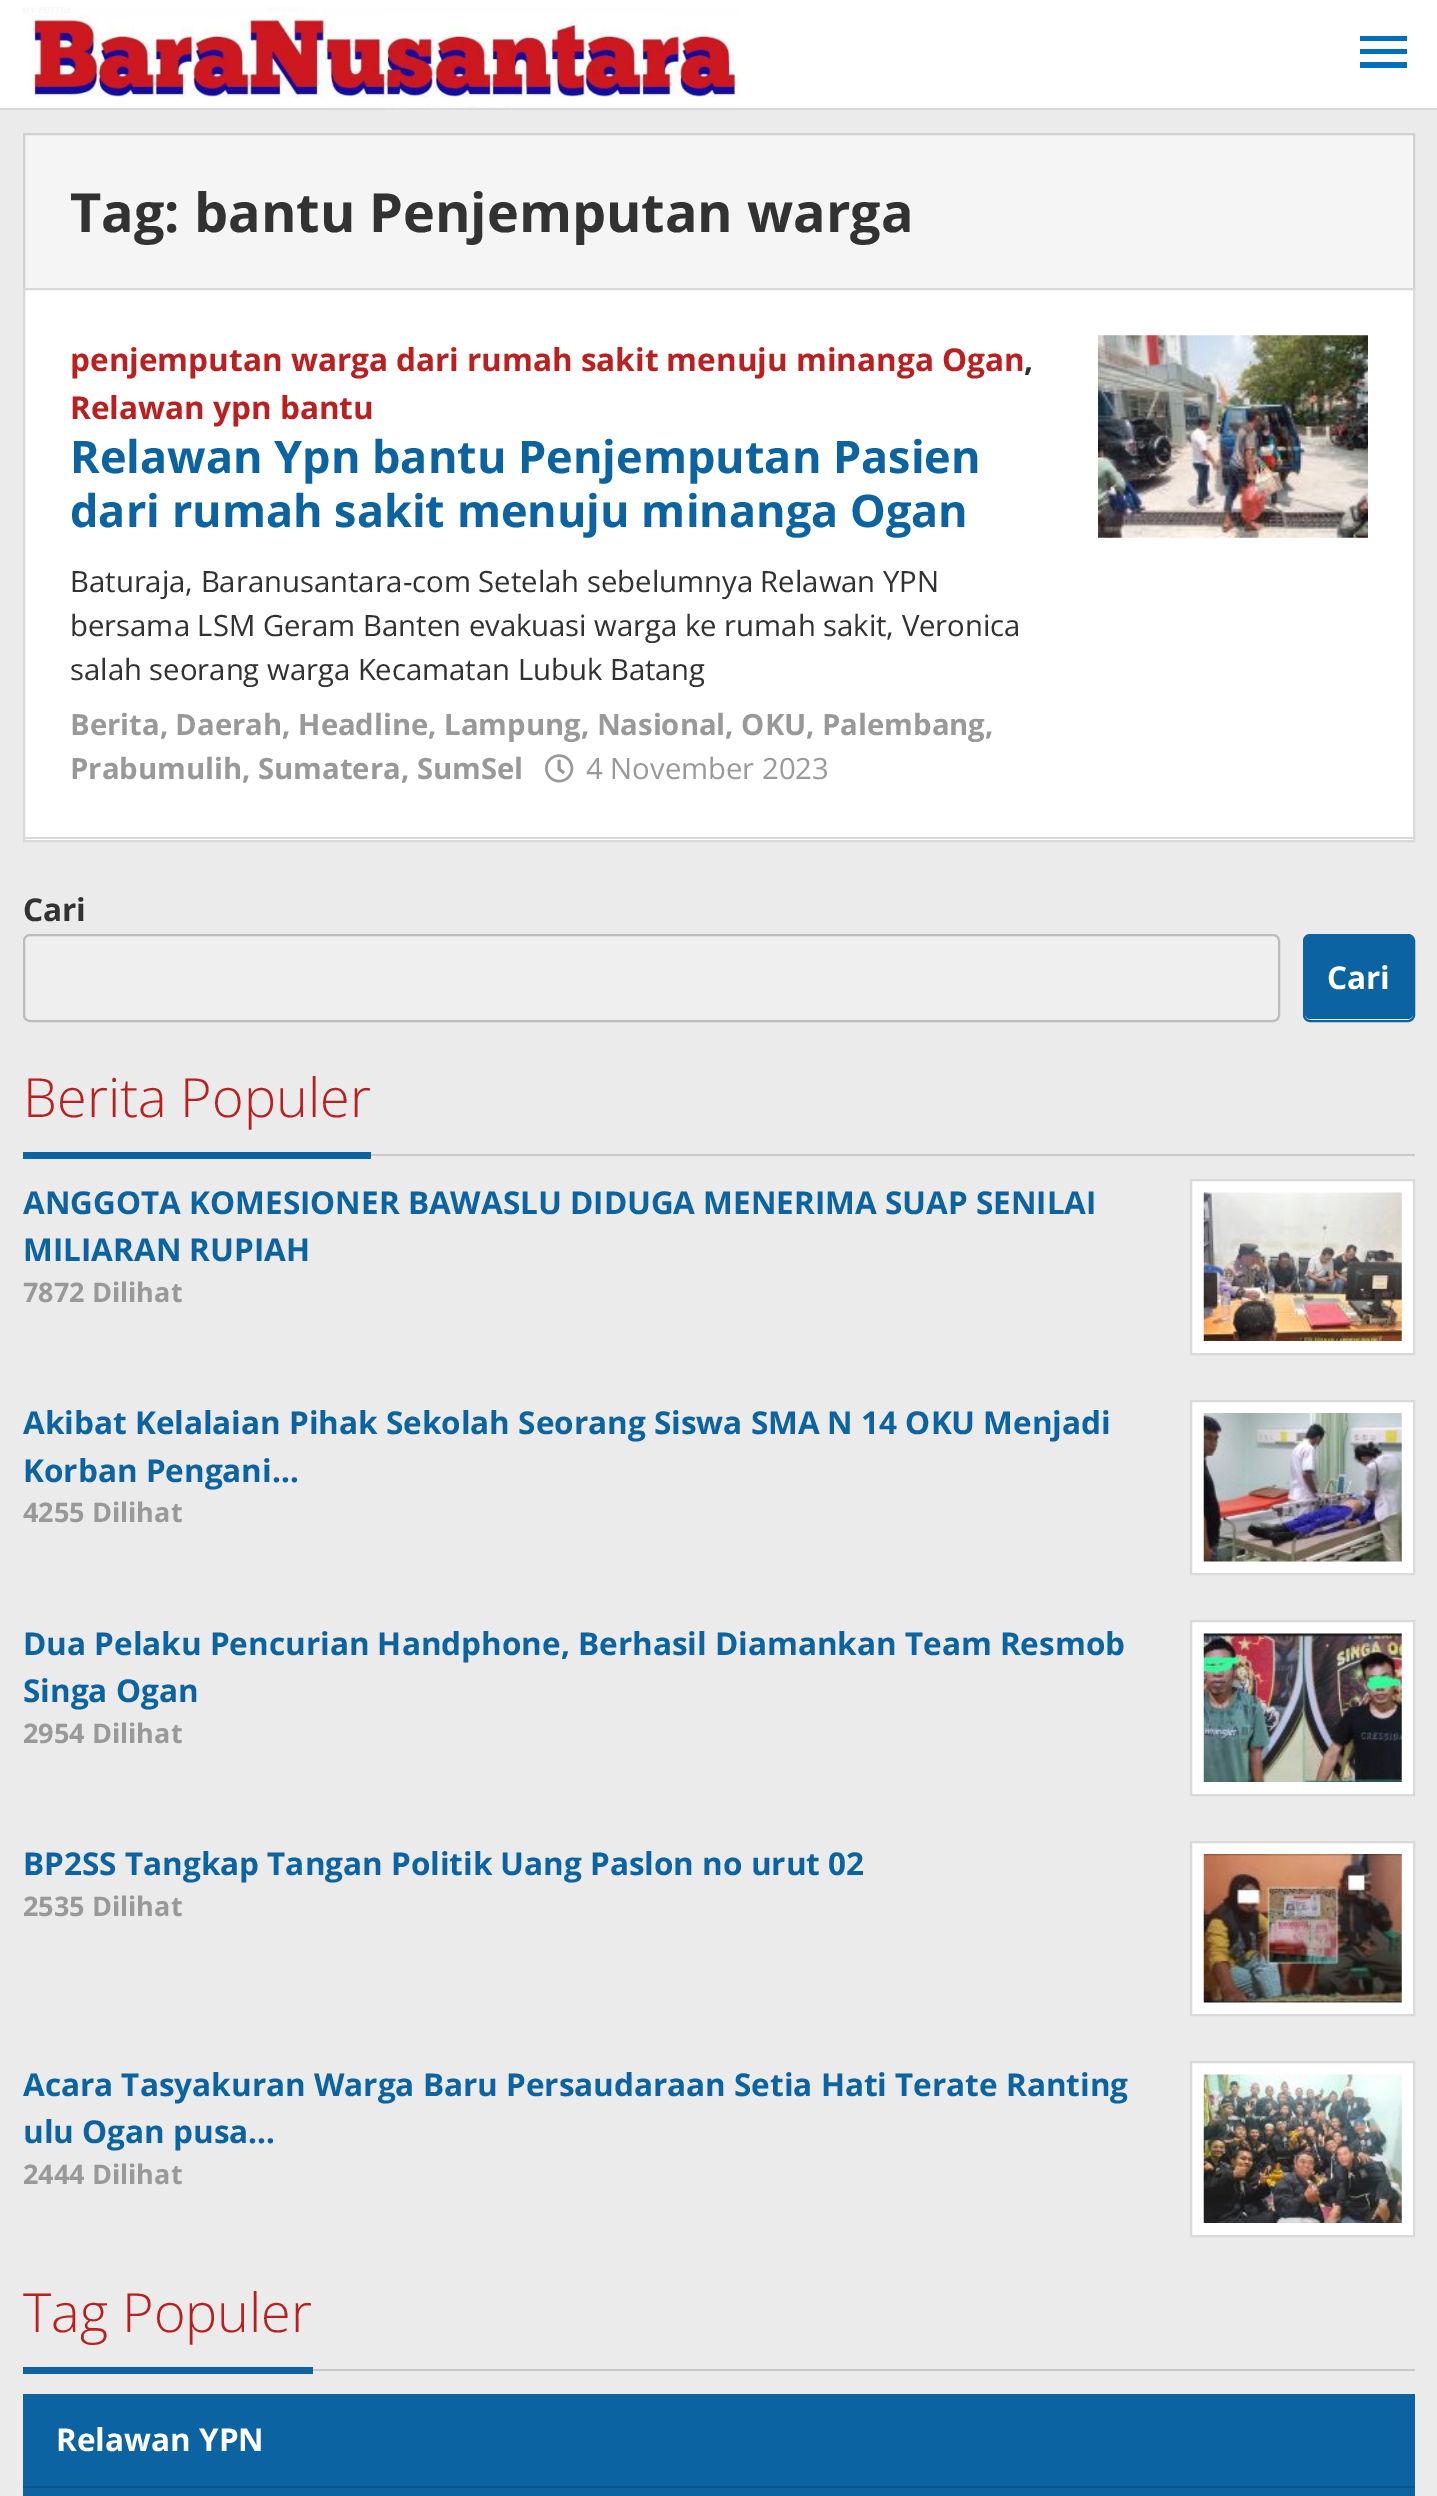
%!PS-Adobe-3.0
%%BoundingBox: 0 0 1437 2496
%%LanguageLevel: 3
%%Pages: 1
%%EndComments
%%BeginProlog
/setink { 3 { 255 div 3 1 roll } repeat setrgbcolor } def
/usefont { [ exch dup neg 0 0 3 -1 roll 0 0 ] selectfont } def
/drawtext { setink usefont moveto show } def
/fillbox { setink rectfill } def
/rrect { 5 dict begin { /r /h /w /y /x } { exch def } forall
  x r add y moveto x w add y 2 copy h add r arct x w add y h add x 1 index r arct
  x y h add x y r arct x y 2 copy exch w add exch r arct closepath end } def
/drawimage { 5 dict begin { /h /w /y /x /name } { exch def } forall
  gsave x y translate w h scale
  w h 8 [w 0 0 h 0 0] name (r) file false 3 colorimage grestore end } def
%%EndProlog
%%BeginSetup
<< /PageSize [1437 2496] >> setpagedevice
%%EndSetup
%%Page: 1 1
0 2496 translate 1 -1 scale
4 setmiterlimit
0 0 1437 2496 235 235 235 fillbox
0 0 1437 108 255 255 255 fillbox
0 108 1437 2 217 217 217 fillbox
(assets/img1.rgb) 22 7 718 101 drawimage
1 111 186 setink
1360 68 moveto 1407 68 lineto 1407 62 lineto 1360 62 lineto closepath 1360 54 moveto 1407 54 lineto 1407 49 lineto 1360 49 lineto closepath 1360 36 moveto 1360 41 lineto 1407 41 lineto 1407 36 lineto closepath fill
245 245 245 setink
24 134 moveto 1414 134 lineto 1414 289 lineto 24 289 lineto closepath gsave fill grestore
208 208 208 setink
2 setlinewidth
stroke
(Tag: bantu Penjemputan warga) 70 232 /OpenSans-Bold 54 50 50 51 drawtext
255 255 255 setink
24 289 moveto 1414 289 lineto 1414 841 lineto 24 841 lineto closepath gsave fill grestore
217 217 217 setink
stroke
25 837 1388 2 217 217 217 fillbox
(penjemputan warga dari rumah sakit menuju minanga Ogan) 70 371 /OpenSans-Bold 31.5 185 32 31 drawtext
(,) 1024 371 /OpenSans-Bold 31.5 50 50 51 drawtext
(Relawan ypn bantu) 70 419 /OpenSans-Bold 31.5 185 32 31 drawtext
(Relawan Ypn bantu Penjemputan Pasien) 70 473 /OpenSans-Bold 45 11 99 161 drawtext
(dari rumah sakit menuju minanga Ogan) 70 527 /OpenSans-Bold 45 11 99 161 drawtext
(Baturaja, Baranusantara-com Setelah sebelumnya Relawan YPN) 70 592 /OpenSans-Regular 29.25 50 50 51 drawtext
(bersama LSM Geram Banten evakuasi warga ke rumah sakit, Veronica) 70 636 /OpenSans-Regular 29.25 50 50 51 drawtext
(salah seorang warga Kecamatan Lubuk Batang) 70 680 /OpenSans-Regular 29.25 50 50 51 drawtext
(Berita, Daerah, Headline, Lampung, Nasional, OKU, Palembang,) 70 735 /OpenSans-Bold 29.25 153 153 153 drawtext
(Prabumulih, Sumatera, SumSel) 70 779 /OpenSans-Bold 29.25 153 153 153 drawtext
(assets/img2.rgb) 545 754 29 29 drawimage
(4 November 2023) 586 779 /OpenSans-Regular 29.25 153 153 153 drawtext
(assets/img3.rgb) 1098 335 270 203 drawimage
(Cari) 23 921 /OpenSans-Bold 31.5 50 50 51 drawtext
239 239 239 setink
25 936 1253 83 5 rrect fill
188 188 188 setink
24 935 1255 86 6 rrect stroke
11 99 161 setink
1305 936 108 83 5 rrect fill
1304 935 110 86 6 rrect stroke
(Cari) 1327 989 /OpenSans-Bold 31.5 255 255 255 drawtext
371 1154 1044 2 200 200 200 fillbox
23 1152 348 7 11 99 161 fillbox
(Berita Populer) 23 1117 /OpenSans-Light 54 185 32 31 drawtext
(ANGGOTA KOMESIONER BAWASLU DIDUGA MENERIMA SUAP SENILAI) 23 1214 /OpenSans-Bold 31.5 11 99 161 drawtext
255 255 255 setink
1191 1180 moveto 1414 1180 lineto 1414 1354 lineto 1191 1354 lineto closepath gsave fill grestore
217 217 217 setink
stroke
(assets/img4.rgb) 1203 1192 199 149 drawimage
(MILIARAN RUPIAH) 23 1261 /OpenSans-Bold 31.5 11 99 161 drawtext
(7872 Dilihat) 23 1302 /OpenSans-Bold 27 153 153 153 drawtext
(Akibat Kelalaian Pihak Sekolah Seorang Siswa SMA N 14 OKU Menjadi) 23 1434 /OpenSans-Bold 31.5 11 99 161 drawtext
255 255 255 setink
1191 1401 moveto 1414 1401 lineto 1414 1574 lineto 1191 1574 lineto closepath gsave fill grestore
217 217 217 setink
stroke
(assets/img5.rgb) 1203 1413 199 149 drawimage
(Korban Pengani…) 23 1482 /OpenSans-Bold 31.5 11 99 161 drawtext
(4255 Dilihat) 23 1522 /OpenSans-Bold 27 153 153 153 drawtext
(Dua Pelaku Pencurian Handphone, Berhasil Diamankan Team Resmob) 23 1655 /OpenSans-Bold 31.5 11 99 161 drawtext
255 255 255 setink
1191 1621 moveto 1414 1621 lineto 1414 1795 lineto 1191 1795 lineto closepath gsave fill grestore
217 217 217 setink
stroke
(assets/img6.rgb) 1203 1633 199 149 drawimage
(Singa Ogan) 23 1702 /OpenSans-Bold 31.5 11 99 161 drawtext
(2954 Dilihat) 23 1743 /OpenSans-Bold 27 153 153 153 drawtext
(BP2SS Tangkap Tangan Politik Uang Paslon no urut 02) 23 1875 /OpenSans-Bold 31.5 11 99 161 drawtext
255 255 255 setink
1191 1842 moveto 1414 1842 lineto 1414 2015 lineto 1191 2015 lineto closepath gsave fill grestore
217 217 217 setink
stroke
(assets/img7.rgb) 1203 1854 199 149 drawimage
(2535 Dilihat) 23 1916 /OpenSans-Bold 27 153 153 153 drawtext
(Acara Tasyakuran Warga Baru Persaudaraan Setia Hati Terate Ranting) 23 2096 /OpenSans-Bold 31.5 11 99 161 drawtext
255 255 255 setink
1191 2062 moveto 1414 2062 lineto 1414 2236 lineto 1191 2236 lineto closepath gsave fill grestore
217 217 217 setink
stroke
(assets/img8.rgb) 1203 2074 199 149 drawimage
(ulu Ogan pusa…) 23 2143 /OpenSans-Bold 31.5 11 99 161 drawtext
(2444 Dilihat) 23 2184 /OpenSans-Bold 27 153 153 153 drawtext
313 2369 1102 2 200 200 200 fillbox
23 2367 290 7 11 99 161 fillbox
(Tag Populer) 23 2332 /OpenSans-Light 54 185 32 31 drawtext
23 2394 1392 102 11 99 161 fillbox
23 2486 1392 2 9 84 137 fillbox
(Relawan YPN) 56 2451 /OpenSans-Bold 31.5 255 255 255 drawtext
showpage
%%EOF
